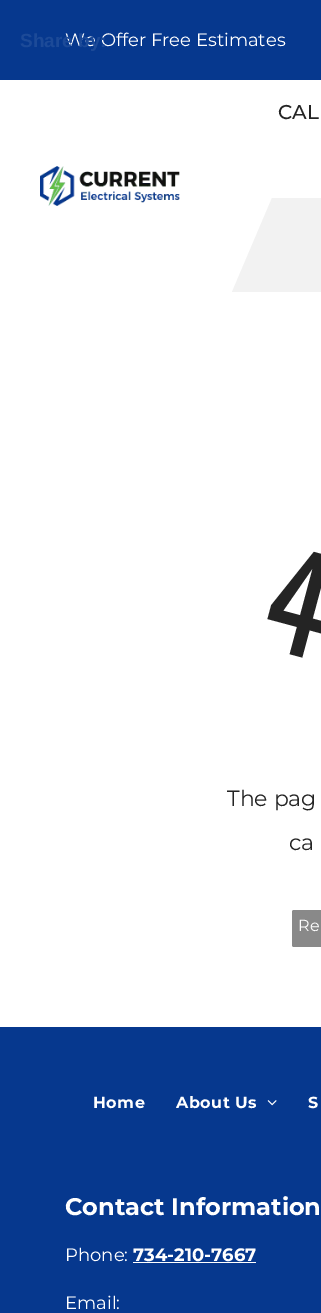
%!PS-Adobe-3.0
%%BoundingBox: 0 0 321 1313
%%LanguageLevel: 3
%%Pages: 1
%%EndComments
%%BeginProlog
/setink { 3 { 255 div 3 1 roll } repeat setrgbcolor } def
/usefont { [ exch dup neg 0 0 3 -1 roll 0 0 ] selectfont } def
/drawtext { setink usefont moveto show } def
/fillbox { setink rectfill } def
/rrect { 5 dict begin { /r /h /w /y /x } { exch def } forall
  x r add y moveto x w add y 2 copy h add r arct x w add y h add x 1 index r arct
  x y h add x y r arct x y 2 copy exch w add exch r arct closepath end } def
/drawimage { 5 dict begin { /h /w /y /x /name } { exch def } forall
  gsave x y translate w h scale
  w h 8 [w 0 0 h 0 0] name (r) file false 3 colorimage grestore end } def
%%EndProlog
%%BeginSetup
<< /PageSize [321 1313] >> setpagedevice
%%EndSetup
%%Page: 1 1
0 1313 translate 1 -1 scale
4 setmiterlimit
0 0 321 1313 255 255 255 fillbox
0 0 321 80 6 56 142 fillbox
(We Offer Free Estimates) 65 46 /Montserrat-Regular 18 255 255 255 drawtext
(Share by:) 20 47 /LiberationSans-Bold 19 28 74 152 drawtext
(CAL) 278 119 /Montserrat-Medium 20 36 36 36 drawtext
242 242 242 setink
272 198 moveto 232 292 lineto 277 292 lineto 277 198 lineto closepath fill
277 198 44 94 242 242 242 fillbox
(assets/img1.rgb) 40 166 140 40 drawimage
/Oswald-Regular 130 usefont
36 36 36 setink
gsave 255 645 translate 15 rotate 0 0 moveto (4) show grestore
(The pag) 227 806 /Montserrat-Regular 22 36 36 36 drawtext
(ca) 289 850 /Montserrat-Regular 22 36 36 36 drawtext
137 137 137 setink
292 910 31 37 2 rrect fill
(Re) 298 931 /Montserrat-Regular 16 255 255 255 drawtext
0 1027 321 286 6 56 142 fillbox
/Montserrat-Bold 16 usefont
255 255 255 setink
93 1108 moveto 0.5 0 (Home) ashow
176 1108 moveto 0.5 0 (About Us) ashow
(assets/img2.rgb) 267 1100 10 6 drawimage
308 1108 moveto 0.5 0 (S) ashow
(Contact Information) 65 1215 /Montserrat-Bold 24 255 255 255 drawtext
(Phone:) 65 1261 /Montserrat-Regular 18 255 255 255 drawtext
(734-210-7667) 133 1261 /Montserrat-Bold 18 255 255 255 drawtext
133 1262 123 1 255 255 255 fillbox
(Email:) 65 1309 /Montserrat-Regular 18 255 255 255 drawtext
showpage
%%EOF
